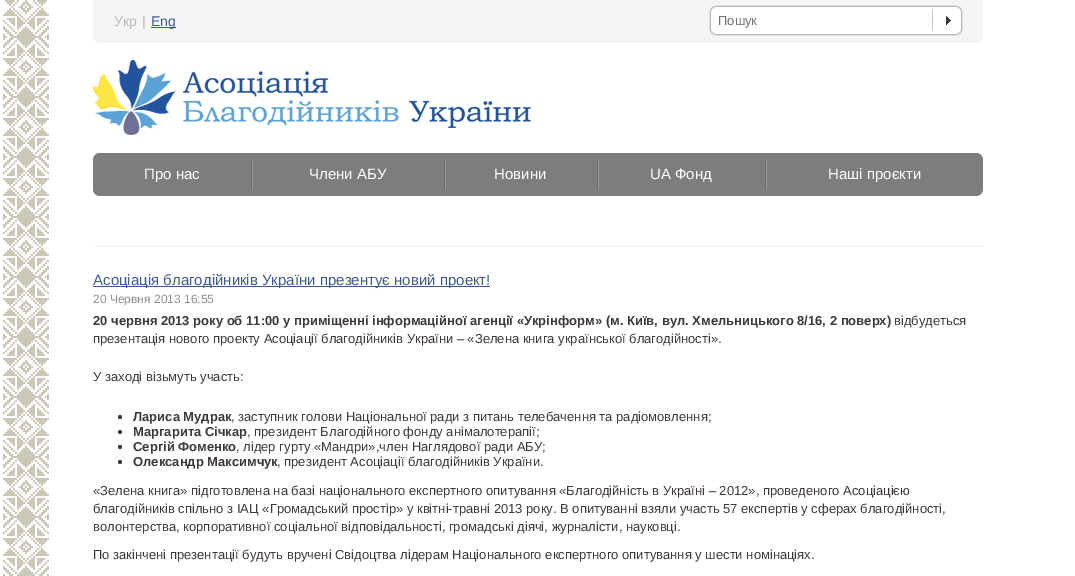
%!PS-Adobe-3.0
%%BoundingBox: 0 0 1075 576
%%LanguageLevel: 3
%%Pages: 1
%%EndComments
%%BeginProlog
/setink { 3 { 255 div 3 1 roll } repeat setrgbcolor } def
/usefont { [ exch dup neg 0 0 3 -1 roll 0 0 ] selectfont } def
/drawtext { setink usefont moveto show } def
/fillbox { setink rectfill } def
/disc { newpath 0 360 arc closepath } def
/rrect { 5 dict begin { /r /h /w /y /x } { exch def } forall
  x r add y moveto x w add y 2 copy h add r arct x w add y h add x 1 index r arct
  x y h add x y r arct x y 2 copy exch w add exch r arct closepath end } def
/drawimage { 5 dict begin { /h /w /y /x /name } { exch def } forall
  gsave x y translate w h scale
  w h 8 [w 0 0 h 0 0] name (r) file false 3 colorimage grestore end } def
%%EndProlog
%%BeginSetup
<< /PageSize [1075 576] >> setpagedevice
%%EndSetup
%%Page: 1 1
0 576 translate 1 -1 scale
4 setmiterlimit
0 0 1075 576 255 255 255 fillbox
(assets/img1.rgb) 3 0 46 576 drawimage
245 245 245 setink
93 0 moveto 983 0 lineto 983 36 lineto 983 40 980 43 976 43 curveto 100 43 lineto 96 43 93 40 93 36 curveto closepath fill
(Укр) 114 26 /LiberationSans-Regular 14 189 186 184 drawtext
(|) 142 26 /LiberationSans-Regular 14 189 186 184 drawtext
151 27 25 1 59 89 152 fillbox
(Eng) 151 26 /LiberationSans-Regular 14 59 89 152 drawtext
(assets/img2.rgb) 709 5 254 31 drawimage
(Пошук) 718 25 /LiberationSans-Regular 13 112 112 112 drawtext
(assets/img3.rgb) 93 60 438 75 drawimage
125 125 125 setink
93 153 890 43 7 rrect fill
(Про нас) 144 179 /LiberationSans-Regular 15 255 255 255 drawtext
(assets/img4.rgb) 251 160 2 29 drawimage
(Члени АБУ) 309 179 /LiberationSans-Regular 15 255 255 255 drawtext
(assets/img4.rgb) 444 160 2 29 drawimage
(Новини) 494 179 /LiberationSans-Regular 15 255 255 255 drawtext
(assets/img4.rgb) 597 160 2 29 drawimage
(UA Фонд) 650 179 /LiberationSans-Regular 15 255 255 255 drawtext
(assets/img4.rgb) 765 160 2 29 drawimage
(Наші проєкти) 828 179 /LiberationSans-Regular 15 255 255 255 drawtext
93 246 890 1 240 243 247 fillbox
93 286 397 1 59 89 152 fillbox
(Асоціація благодійників України презентує новий проект!) 93 285 /LiberationSans-Regular 15 59 89 152 drawtext
(20 Червня 2013 16:55) 93 303 /LiberationSans-Regular 12 143 143 143 drawtext
(20 червня 2013 року об 11:00 у приміщенні інформаційної агенції «Укрінформ» \(м. Київ, вул. Хмельницького 8/16, 2 поверх\)) 93 325 /LiberationSans-Bold 13 62 55 60 drawtext
(відбудеться) 894 325 /LiberationSans-Regular 13 62 55 60 drawtext
(презентація нового проекту Асоціації благодійників України – «Зелена книга української благодійності».) 93 343 /LiberationSans-Regular 13 62 55 60 drawtext
(У заході візьмуть участь:) 93 381 /LiberationSans-Regular 13 62 55 60 drawtext
120 417 2 disc fill
(Лариса Мудрак) 133 421 /LiberationSans-Bold 13 62 55 60 drawtext
(, заступник голови Національної ради з питань телебачення та радіомовлення;) 231 421 /LiberationSans-Regular 13 62 55 60 drawtext
120 432 2 disc fill
(Маргарита Січкар) 133 436 /LiberationSans-Bold 13 62 55 60 drawtext
(, президент Благодійного фонду анімалотерапії;) 247 436 /LiberationSans-Regular 13 62 55 60 drawtext
120 447 2 disc fill
(Сергій Фоменко) 133 451 /LiberationSans-Bold 13 62 55 60 drawtext
(, лідер гурту «Мандри»,член Наглядової ради АБУ;) 236 451 /LiberationSans-Regular 13 62 55 60 drawtext
120 462 2 disc fill
(Олександр Максимчук) 133 466 /LiberationSans-Bold 13 62 55 60 drawtext
(, президент Асоціації благодійників України.) 277 466 /LiberationSans-Regular 13 62 55 60 drawtext
(«Зелена книга» підготовлена на базі національного експертного опитування «Благодійність в Україні – 2012», проведеного Асоціацією) 93 495 /LiberationSans-Regular 13 62 55 60 drawtext
(благодійників спільно з ІАЦ «Громадський простір» у квітні-травні 2013 року. В опитуванні взяли участь 57 експертів у сферах благодійності,) 93 513 /LiberationSans-Regular 13 62 55 60 drawtext
(волонтерства, корпоративної соціальної відповідальності, громадські діячі, журналісти, науковці.) 93 531 /LiberationSans-Regular 13 62 55 60 drawtext
(По закінчені презентації будуть вручені Свідоцтва лідерам Національного експертного опитування у шести номінаціях.) 93 559 /LiberationSans-Regular 13 62 55 60 drawtext
showpage
%%EOF
